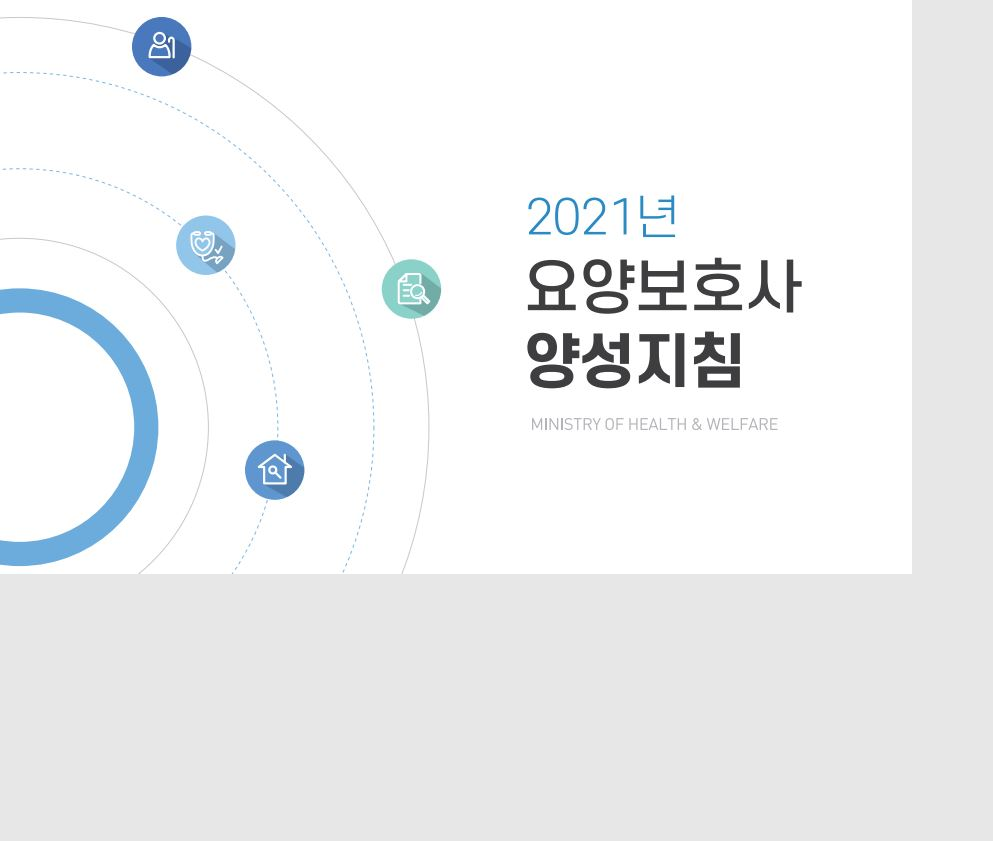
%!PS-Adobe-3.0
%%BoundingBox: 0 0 993 841
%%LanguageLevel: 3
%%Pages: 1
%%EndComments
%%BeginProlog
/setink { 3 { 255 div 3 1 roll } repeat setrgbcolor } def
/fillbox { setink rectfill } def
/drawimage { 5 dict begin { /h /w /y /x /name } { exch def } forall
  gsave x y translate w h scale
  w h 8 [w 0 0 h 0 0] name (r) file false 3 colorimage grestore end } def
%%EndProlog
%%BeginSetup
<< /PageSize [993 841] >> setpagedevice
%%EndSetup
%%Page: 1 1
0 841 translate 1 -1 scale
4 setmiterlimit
0 0 993 841 231 231 231 fillbox
(assets/img1.rgb) 0 0 912 574 drawimage
showpage
%%EOF
